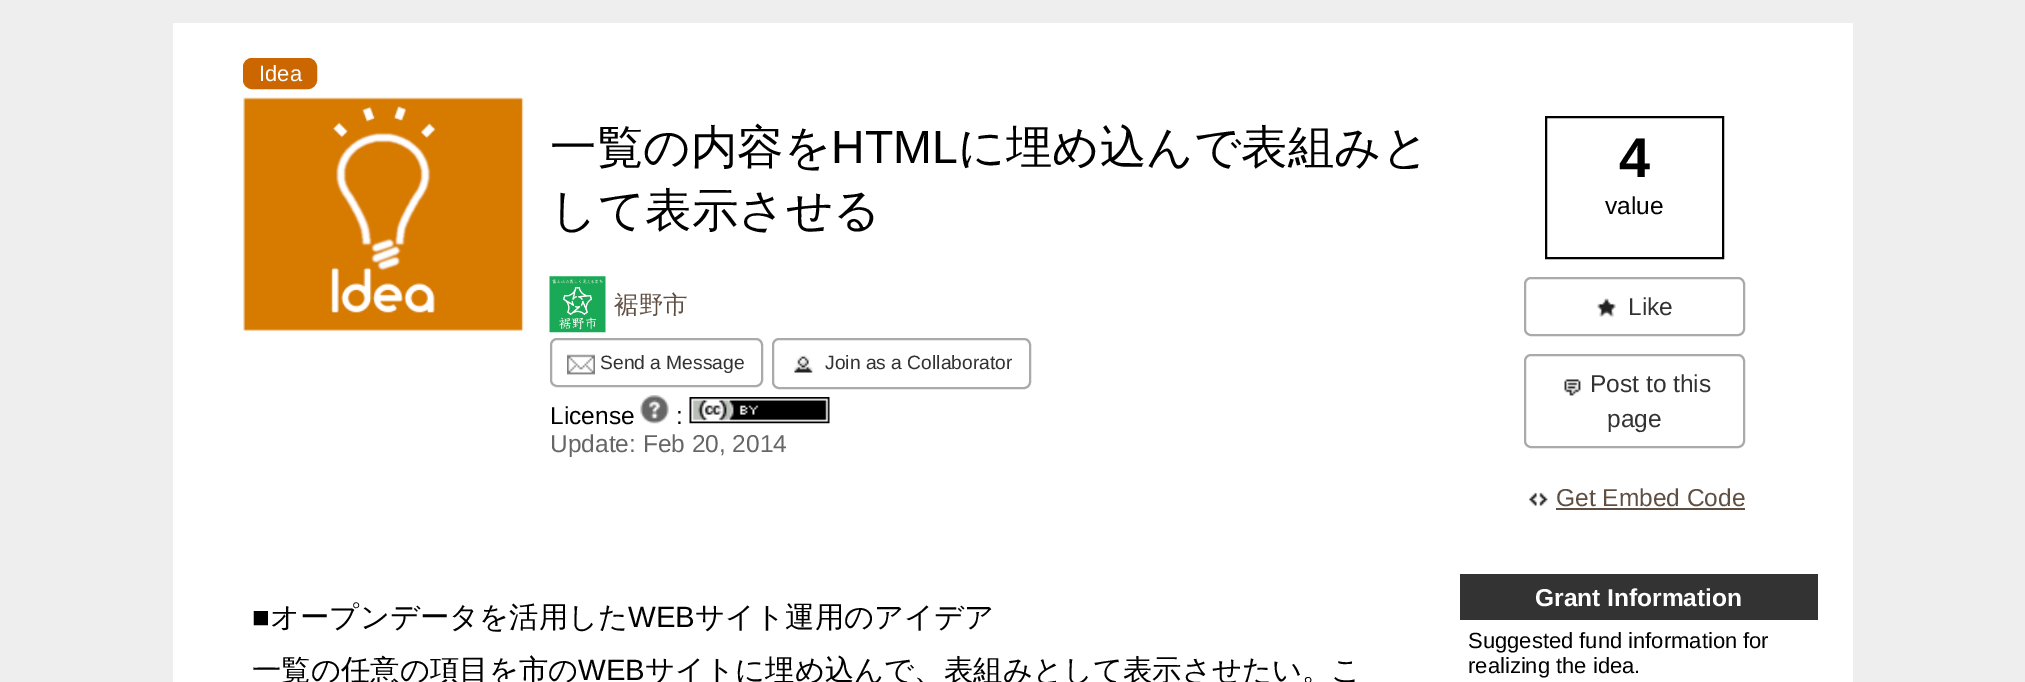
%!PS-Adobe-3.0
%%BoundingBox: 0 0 2025 682
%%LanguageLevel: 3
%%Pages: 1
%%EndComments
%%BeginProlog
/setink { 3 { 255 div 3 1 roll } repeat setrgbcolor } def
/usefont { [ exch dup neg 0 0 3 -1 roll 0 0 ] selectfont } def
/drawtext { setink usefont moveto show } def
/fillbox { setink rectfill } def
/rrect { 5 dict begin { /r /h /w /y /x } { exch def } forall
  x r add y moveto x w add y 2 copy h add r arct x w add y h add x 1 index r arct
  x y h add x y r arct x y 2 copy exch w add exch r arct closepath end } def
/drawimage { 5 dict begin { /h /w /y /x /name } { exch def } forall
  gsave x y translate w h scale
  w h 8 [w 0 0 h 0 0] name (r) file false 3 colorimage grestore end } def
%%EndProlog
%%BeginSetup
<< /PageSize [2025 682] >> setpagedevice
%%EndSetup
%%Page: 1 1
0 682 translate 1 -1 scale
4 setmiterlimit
0 0 2025 682 238 238 238 fillbox
173 23 1680 659 255 255 255 fillbox
204 102 0 setink
244 59 72 29 8 rrect gsave fill grestore
2 setlinewidth
stroke
(Idea) 259 81 /LiberationSans-Regular 22 255 255 255 drawtext
(assets/img1.rgb) 243 97 281 234 drawimage
(一覧の内容を) 550 163 /WenQuanYiZenHei-Medium 46.5 0 0 0 drawtext
(HTML) 831 163 /LiberationSans-Regular 46.5 0 0 0 drawtext
(に埋め込んで表組みと) 958 163 /WenQuanYiZenHei-Medium 46.5 0 0 0 drawtext
(して表示させる) 550 226 /WenQuanYiZenHei-Medium 46.5 0 0 0 drawtext
(assets/img2.rgb) 549 276 57 57 drawimage
(裾野市) 614 313 /WenQuanYiZenHei-Medium 24.5 95 78 66 drawtext
170 170 170 setink
551 339 211 47 6 rrect stroke
(assets/img3.rgb) 567 354 28 21 drawimage
(Send a Message) 600 369 /LiberationSans-Regular 19.25 51 51 51 drawtext
170 170 170 setink
773 339 257 49 6 rrect stroke
(assets/img4.rgb) 794 355 19 18 drawimage
(Join as a Collaborator) 825 369 /LiberationSans-Regular 19.25 51 51 51 drawtext
(License) 550 424 /LiberationSans-Regular 24.5 0 0 0 drawtext
(assets/img5.rgb) 640 395 29 29 drawimage
(:) 676 424 /LiberationSans-Regular 24.5 0 0 0 drawtext
(assets/img6.rgb) 689 397 141 27 drawimage
(Update: Feb 20, 2014) 550 452 /LiberationSans-Regular 24.5 102 102 102 drawtext
0 0 0 setink
1546 117 177 141 rectstroke
(4) 1619 177 /LiberationSans-Bold 56 0 0 0 drawtext
(value) 1605 214 /LiberationSans-Regular 24.5 0 0 0 drawtext
170 170 170 setink
1525 278 219 57 6 rrect stroke
(assets/img7.rgb) 1597 298 19 19 drawimage
(Like) 1628 315 /LiberationSans-Regular 24.5 51 51 51 drawtext
170 170 170 setink
1525 355 219 92 6 rrect stroke
(assets/img8.rgb) 1564 379 17 17 drawimage
(Post to this) 1590 392 /LiberationSans-Regular 24.5 51 51 51 drawtext
(page) 1607 427 /LiberationSans-Regular 24.5 51 51 51 drawtext
(assets/img9.rgb) 1529 492 19 14 drawimage
(Get Embed Code) 1556 506 /LiberationSans-Regular 24.5 95 78 66 drawtext
1556 508 189 2 95 78 66 fillbox
(■) 252 627 /LiberationSans-Regular 29.4 0 0 0 drawtext
(オープンデータを活用した) 270 627 /WenQuanYiZenHei-Medium 29.4 0 0 0 drawtext
(WEB) 628 627 /LiberationSans-Regular 29.4 0 0 0 drawtext
(サイト運用のアイデア) 695 627 /WenQuanYiZenHei-Medium 29.4 0 0 0 drawtext
(一覧の任意の項目を市の) 252 680 /WenQuanYiZenHei-Medium 29.4 0 0 0 drawtext
(WEB) 578 680 /LiberationSans-Regular 29.4 0 0 0 drawtext
(サイトに埋め込んで、表組みとして表示させたい。こ) 645 680 /WenQuanYiZenHei-Medium 29.4 0 0 0 drawtext
1460 574 358 46 51 51 51 fillbox
(Grant Information) 1535 606 /LiberationSans-Bold 24.5 255 255 255 drawtext
(Suggested fund information for) 1468 648 /LiberationSans-Regular 22 0 0 0 drawtext
(realizing the idea.) 1468 673 /LiberationSans-Regular 22 0 0 0 drawtext
showpage
%%EOF
